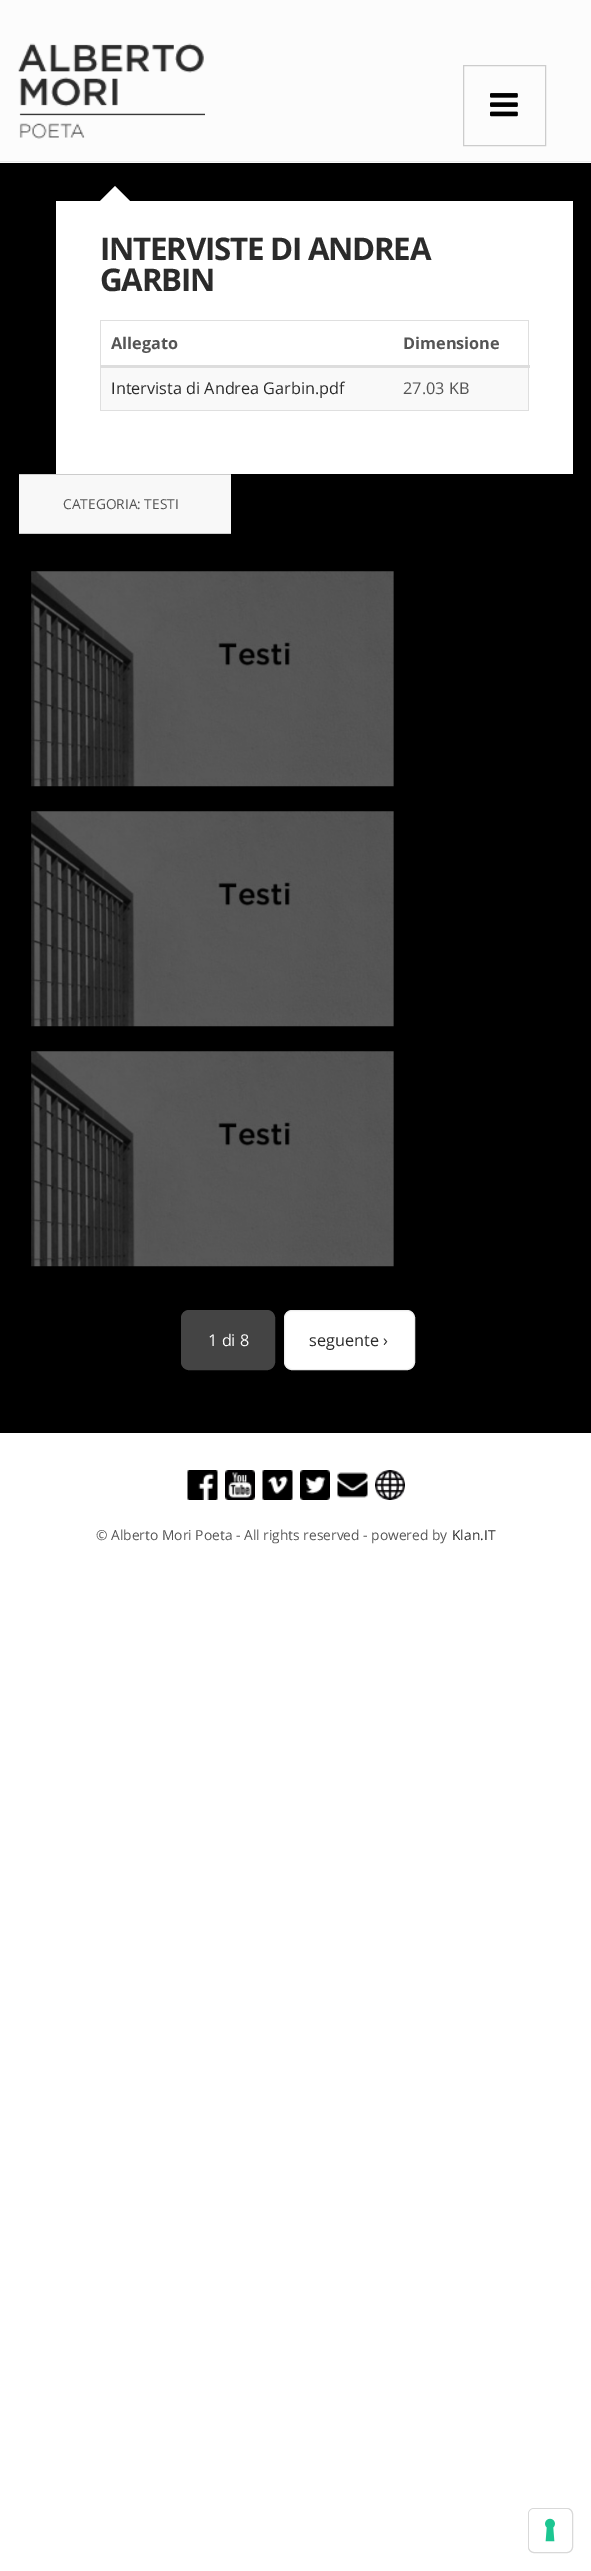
%!PS-Adobe-3.0
%%BoundingBox: 0 0 591 2571
%%LanguageLevel: 3
%%Pages: 1
%%EndComments
%%BeginProlog
/setink { 3 { 255 div 3 1 roll } repeat setrgbcolor } def
/usefont { [ exch dup neg 0 0 3 -1 roll 0 0 ] selectfont } def
/drawtext { setink usefont moveto show } def
/fillbox { setink rectfill } def
/rrect { 5 dict begin { /r /h /w /y /x } { exch def } forall
  x r add y moveto x w add y 2 copy h add r arct x w add y h add x 1 index r arct
  x y h add x y r arct x y 2 copy exch w add exch r arct closepath end } def
/drawimage { 5 dict begin { /h /w /y /x /name } { exch def } forall
  gsave x y translate w h scale
  w h 8 [w 0 0 h 0 0] name (r) file false 3 colorimage grestore end } def
%%EndProlog
%%BeginSetup
<< /PageSize [591 2571] >> setpagedevice
%%EndSetup
%%Page: 1 1
0 2571 translate 1 -1 scale
4 setmiterlimit
0 0 591 2571 255 255 255 fillbox
0 0 591 163 252 252 252 fillbox
0 161 591 1 234 234 234 fillbox
(assets/img1.rgb) 18 43 187 96 drawimage
204 204 204 setink
463.5 65.5 82 80 rectstroke
(assets/img2.rgb) 490 93 28 24 drawimage
0 163 591 1270 0 0 0 fillbox
56 201 517 273 255 255 255 fillbox
130 201 moveto 100 201 lineto 115 186 lineto closepath fill
/OpenSans-Bold 31.25 usefont
43 43 43 setink
100 260 moveto -1.25 0 (INTERVISTE DI ANDREA) ashow
100 291 moveto -1.25 0 (GARBIN) ashow
100 320 429 1 223 223 223 fillbox
528 320 1 91 223 223 223 fillbox
100 410 429 1 223 223 223 fillbox
100 320 1 91 223 223 223 fillbox
(Allegato) 111 349 /OpenSans-Bold 16.25 85 85 85 drawtext
100 365 430 3 221 221 221 fillbox
(Dimensione) 403 349 /OpenSans-Bold 16.25 85 85 85 drawtext
101 368 427 42 249 249 249 fillbox
(Intervista di Andrea Garbin.pdf) 111 394 /OpenSans-Regular 16.25 43 43 43 drawtext
(27.03 KB) 403 394 /OpenSans-Regular 16.25 85 85 85 drawtext
19 475 212 58 248 248 248 fillbox
19 474 212 1 204 204 204 fillbox
19 533 212 1 204 204 204 fillbox
(CATEGORIA: TESTI) 63 509 /OpenSans-Regular 13.75 85 85 85 drawtext
(assets/img3.rgb) 31 571 363 216 drawimage
(assets/img3.rgb) 31 811 363 216 drawimage
(assets/img3.rgb) 31 1051 363 216 drawimage
68 68 68 setink
181.5 1310.5 93 59 7.5 rrect gsave fill grestore
stroke
(1 di 8) 208 1346 /OpenSans-Regular 16.25 255 255 255 drawtext
284.5 1310.5 130 59 7.5 rrect gsave fill grestore
238 238 238 setink
stroke
(seguente ›) 309 1346 /OpenSans-Regular 16.25 43 43 43 drawtext
(assets/img4.rgb) 187 1470 31 30 drawimage
(assets/img5.rgb) 225 1470 30 30 drawimage
(assets/img6.rgb) 262 1470 31 30 drawimage
(assets/img7.rgb) 300 1470 30 30 drawimage
(assets/img8.rgb) 337 1472 31 26 drawimage
(assets/img9.rgb) 375 1470 30 30 drawimage
(© Alberto Mori Poeta - All rights reserved - powered by) 96 1540 /OpenSans-Regular 13.8 85 85 85 drawtext
(Klan.IT) 452 1540 /OpenSans-Regular 13.8 43 43 43 drawtext
217 217 217 setink
528.5 2508.5 44 44 5.5 rrect stroke
255 255 255 setink
529 2509 42 42 5 rrect fill
(assets/img10.rgb) 545 2518 10 24 drawimage
showpage
%%EOF
